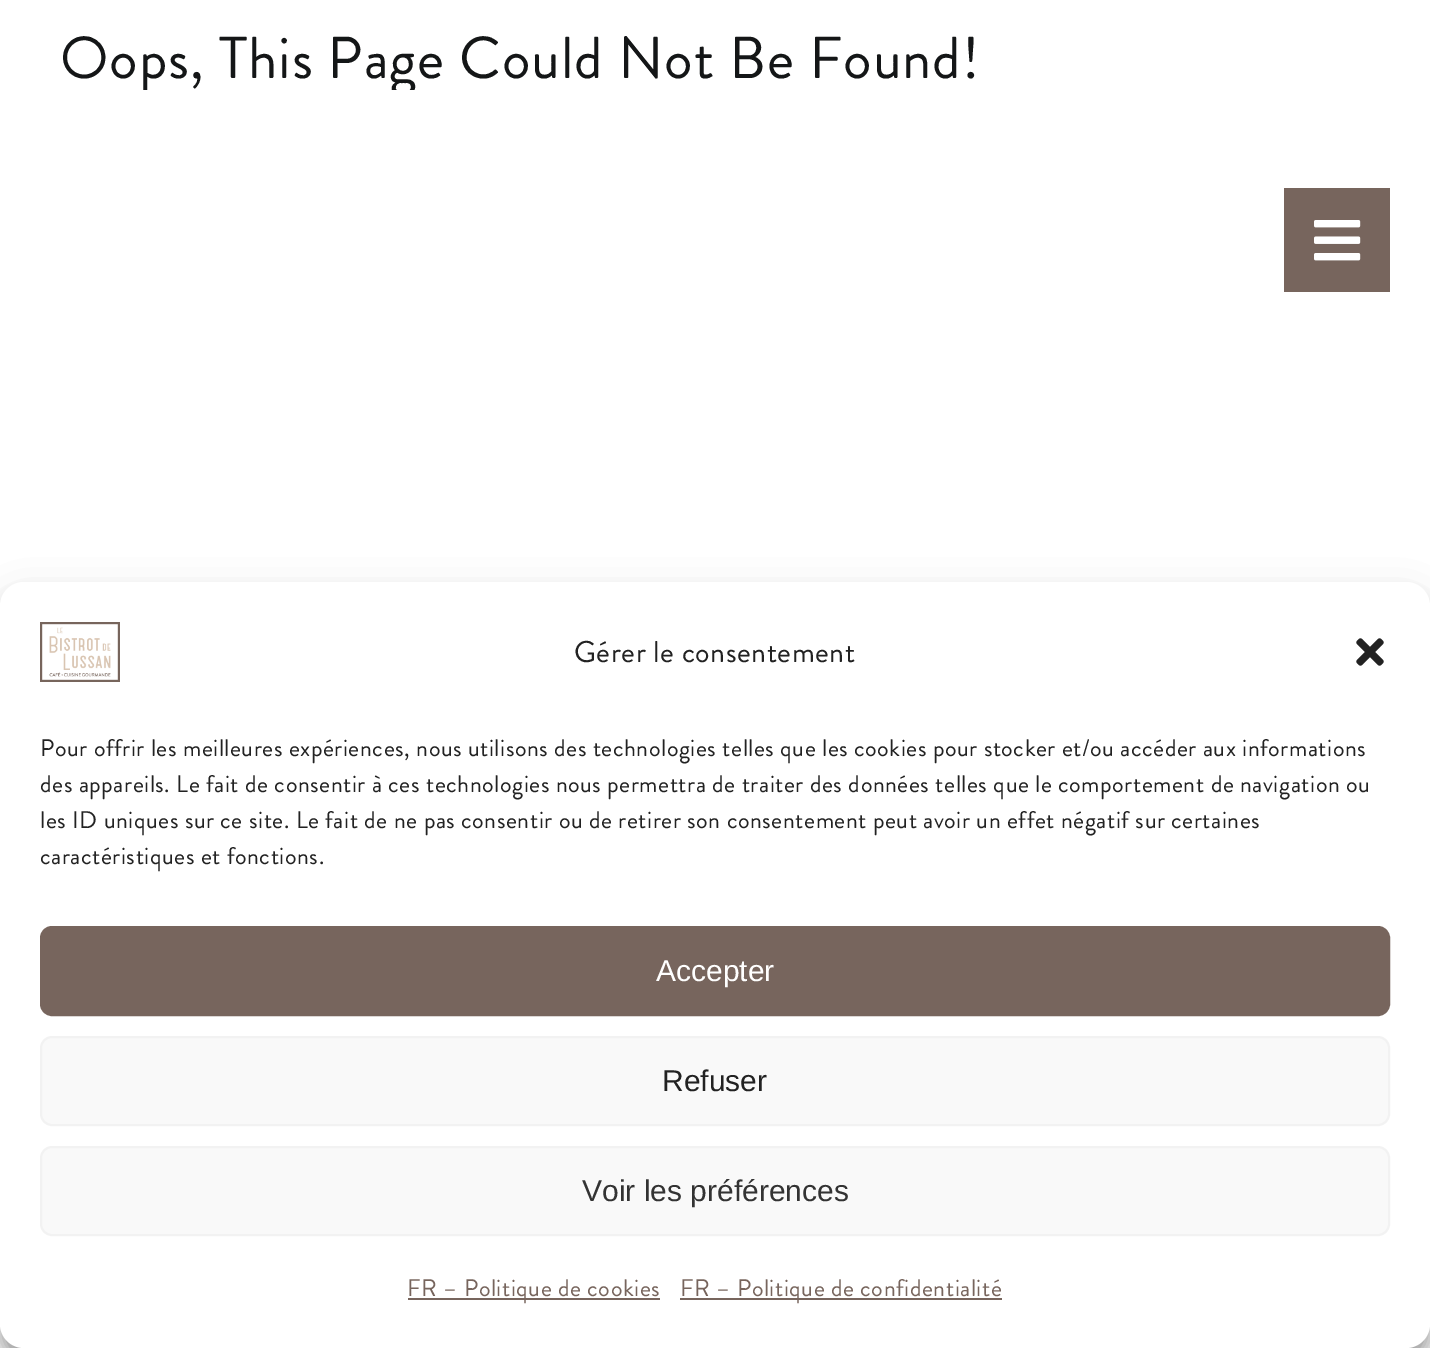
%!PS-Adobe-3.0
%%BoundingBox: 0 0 1430 1348
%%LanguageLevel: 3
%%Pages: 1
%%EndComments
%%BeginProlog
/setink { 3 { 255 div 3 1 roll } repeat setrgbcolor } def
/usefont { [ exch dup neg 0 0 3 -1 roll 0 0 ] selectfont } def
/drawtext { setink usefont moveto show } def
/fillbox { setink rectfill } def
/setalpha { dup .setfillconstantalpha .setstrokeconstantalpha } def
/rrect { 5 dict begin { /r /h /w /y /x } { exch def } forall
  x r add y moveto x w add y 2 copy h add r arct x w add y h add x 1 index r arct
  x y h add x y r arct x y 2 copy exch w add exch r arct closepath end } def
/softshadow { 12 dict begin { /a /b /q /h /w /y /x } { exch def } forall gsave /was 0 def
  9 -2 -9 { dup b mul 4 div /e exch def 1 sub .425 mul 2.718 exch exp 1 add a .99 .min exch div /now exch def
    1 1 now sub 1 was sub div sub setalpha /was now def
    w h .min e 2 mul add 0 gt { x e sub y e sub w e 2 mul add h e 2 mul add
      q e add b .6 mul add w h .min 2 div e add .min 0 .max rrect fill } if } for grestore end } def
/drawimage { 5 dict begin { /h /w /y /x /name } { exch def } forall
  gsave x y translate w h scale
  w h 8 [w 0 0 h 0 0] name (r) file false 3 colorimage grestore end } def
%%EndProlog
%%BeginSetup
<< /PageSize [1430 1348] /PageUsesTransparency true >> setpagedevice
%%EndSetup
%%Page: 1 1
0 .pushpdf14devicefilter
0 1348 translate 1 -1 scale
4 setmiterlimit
0 0 1430 1348 255 255 255 fillbox
/BrandonGrotesque-Regular 59.1 usefont
20 22 23 setink
60 78 moveto 0.9 0 (Oops, This Page Could Not Be Found!) ashow
143 90 272 7 255 255 255 fillbox
1284 188 106 104 119 101 93 fillbox
(assets/img1.rgb) 1314 220 47 41 drawimage
0 0 0 setink
0 594 1430 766 24 6 0.23 softshadow
0 602 1430 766 24 20 0.19 softshadow
255 255 255 setink
0 582 1430 766 24 rrect fill
(assets/img2.rgb) 40 622 80 60 drawimage
/BrandonGrotesque-Regular 30 usefont
34 34 34 setink
574 662 moveto 0.54 0 (Gérer le consentement) ashow
(assets/img3.rgb) 1356 638 28 28 drawimage
/BrandonGrotesque-Regular 24 usefont
40 756 moveto 0.54 0 (Pour offrir les meilleures expériences, nous utilisons des technologies telles que les cookies pour stocker et/ou accéder aux informations) ashow
40 792 moveto 0.54 0 (des appareils. Le fait de consentir à ces technologies nous permettra de traiter des données telles que le comportement de navigation ou) ashow
40 828 moveto 0.54 0 (les ID uniques sur ce site. Le fait de ne pas consentir ou de retirer son consentement peut avoir un effet négatif sur certaines) ashow
40 864 moveto 0.54 0 (caractéristiques et fonctions.) ashow
119 101 93 setink
41 927 1348 88 11 rrect gsave fill grestore
2 setlinewidth
stroke
(Accepter) 656 981 /LiberationSans-Regular 30 255 255 255 drawtext
249 249 249 setink
41 1037 1348 88 11 rrect gsave fill grestore
242 242 242 setink
stroke
(Refuser) 662 1091 /LiberationSans-Regular 30 34 34 34 drawtext
249 249 249 setink
41 1147 1348 88 11 rrect gsave fill grestore
242 242 242 setink
stroke
(Voir les préférences) 582 1201 /LiberationSans-Regular 30 51 51 51 drawtext
408 1298 252 2 119 101 93 fillbox
/BrandonGrotesque-Regular 24 usefont
407 1296 moveto 0.54 0 (FR – Politique de cookies) ashow
680 1298 322 2 119 101 93 fillbox
680 1296 moveto 0.54 0 (FR – Politique de confidentialité) ashow
.poppdf14devicefilter showpage
%%EOF
